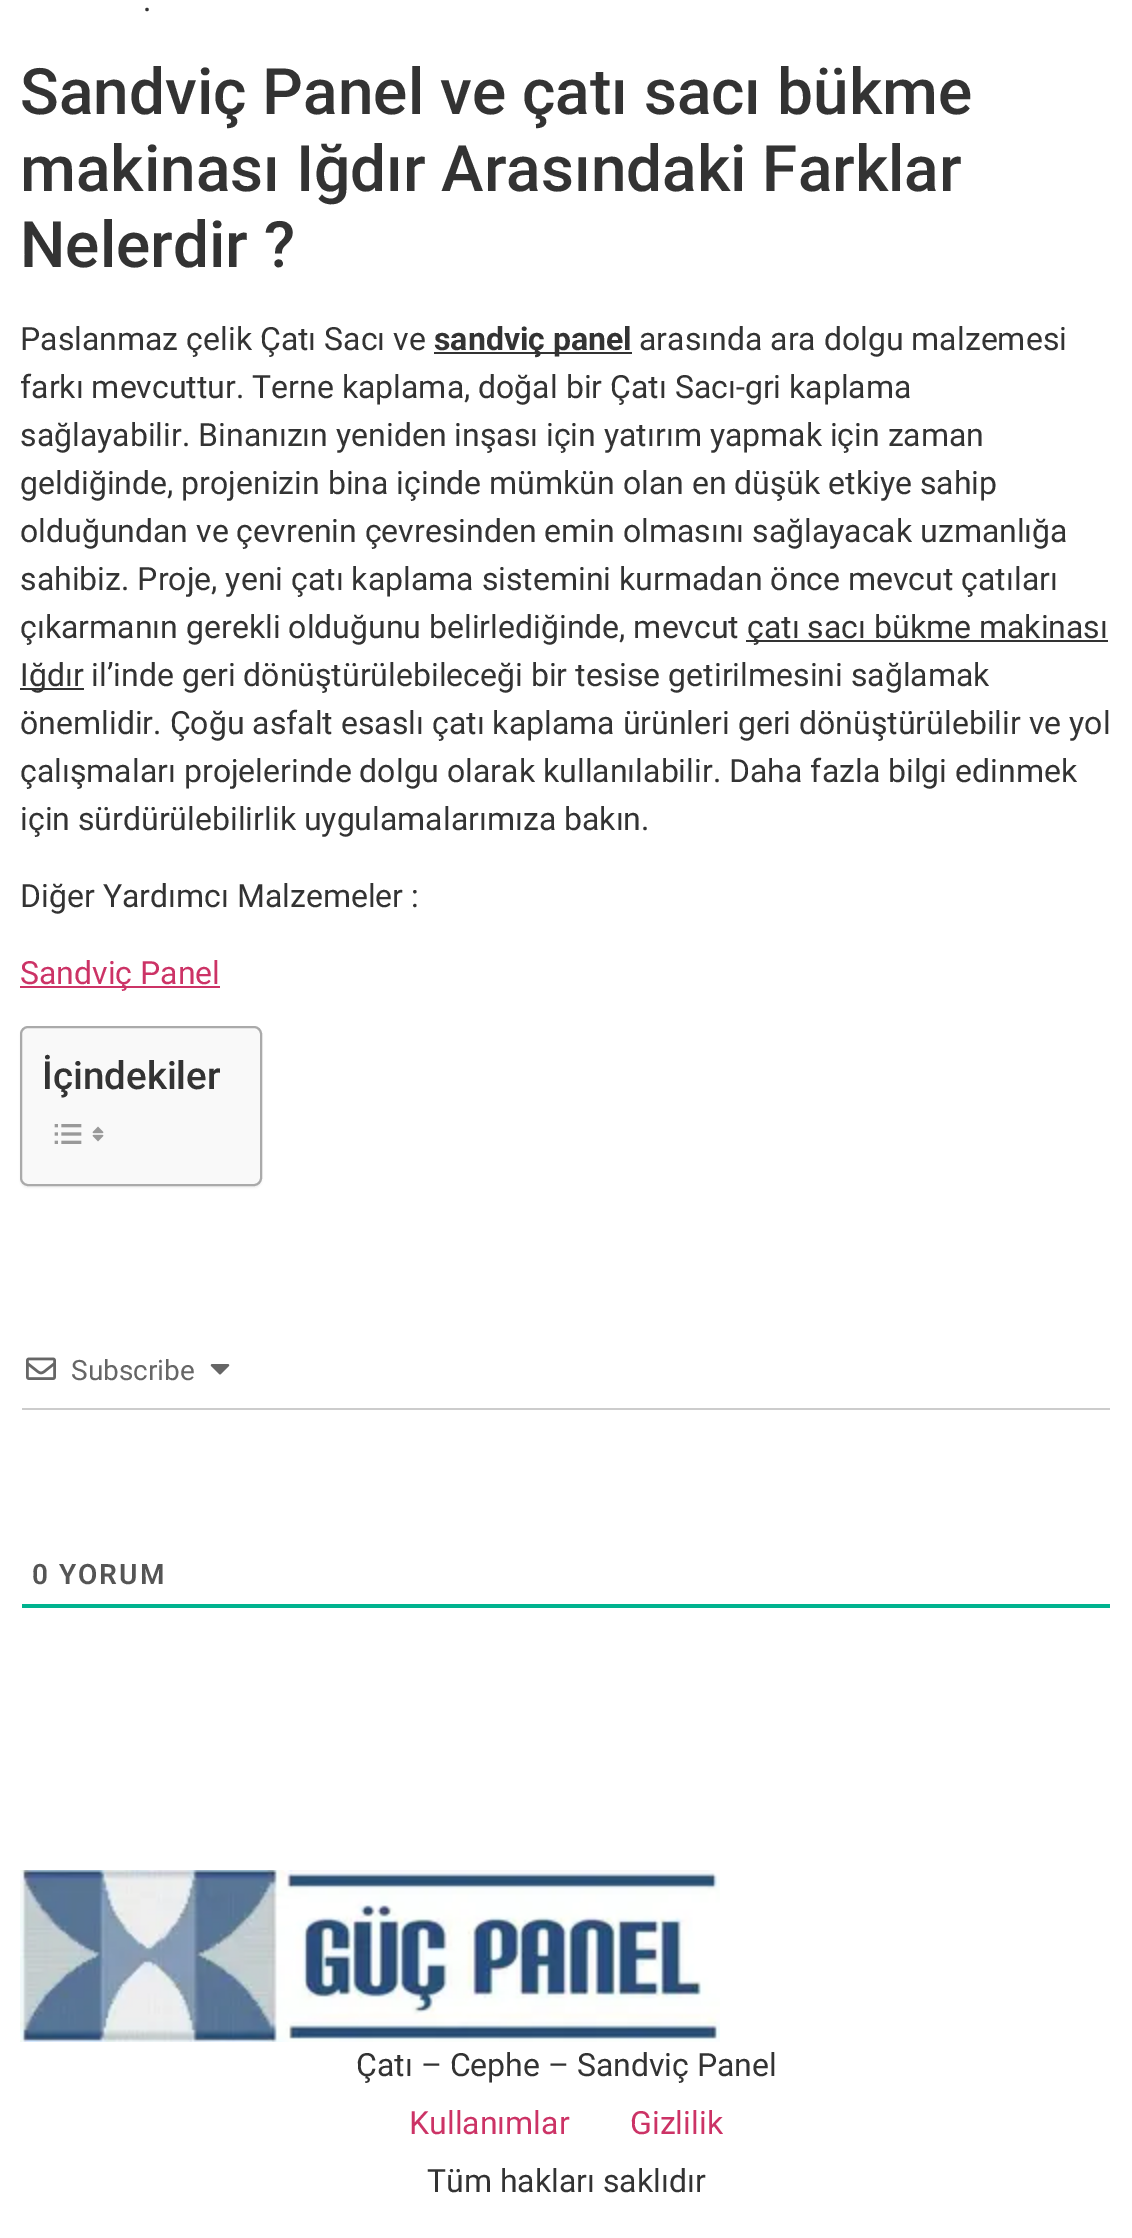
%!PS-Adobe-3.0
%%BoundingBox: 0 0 1132 2238
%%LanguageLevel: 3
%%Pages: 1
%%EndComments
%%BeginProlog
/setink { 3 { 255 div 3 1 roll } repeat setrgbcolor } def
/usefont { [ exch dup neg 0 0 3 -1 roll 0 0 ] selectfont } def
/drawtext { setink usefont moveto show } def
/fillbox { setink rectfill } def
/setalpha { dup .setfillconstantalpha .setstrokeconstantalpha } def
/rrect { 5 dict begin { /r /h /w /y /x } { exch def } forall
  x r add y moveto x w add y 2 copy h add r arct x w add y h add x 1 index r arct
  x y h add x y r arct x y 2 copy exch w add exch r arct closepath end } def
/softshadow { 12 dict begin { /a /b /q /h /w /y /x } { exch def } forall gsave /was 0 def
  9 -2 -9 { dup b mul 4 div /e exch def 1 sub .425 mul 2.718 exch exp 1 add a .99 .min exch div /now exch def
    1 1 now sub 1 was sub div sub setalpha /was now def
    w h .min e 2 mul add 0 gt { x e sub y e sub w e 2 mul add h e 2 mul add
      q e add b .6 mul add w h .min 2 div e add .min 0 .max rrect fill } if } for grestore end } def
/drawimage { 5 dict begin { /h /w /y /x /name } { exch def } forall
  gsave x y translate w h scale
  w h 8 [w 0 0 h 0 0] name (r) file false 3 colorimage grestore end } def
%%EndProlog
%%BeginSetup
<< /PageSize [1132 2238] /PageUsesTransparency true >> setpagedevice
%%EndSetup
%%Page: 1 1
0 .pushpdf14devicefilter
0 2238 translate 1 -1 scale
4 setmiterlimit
0 0 1132 2238 255 255 255 fillbox
(.) 143 11 /Roboto-Regular 32 51 51 51 drawtext
(Sandviç Panel ve çatı sacı bükme) 20 114 /Roboto-Medium 64 51 51 51 drawtext
(makinası Iğdır Arasındaki Farklar) 20 191 /Roboto-Medium 64 51 51 51 drawtext
(Nelerdir ?) 20 267 /Roboto-Medium 64 51 51 51 drawtext
(Paslanmaz çelik Çatı Sacı ve) 20 350 /Roboto-Regular 32 51 51 51 drawtext
434 352 198 2 51 51 51 fillbox
(sandviç panel) 434 350 /Roboto-Bold 32 51 51 51 drawtext
(arasında ara dolgu malzemesi) 639 350 /Roboto-Regular 32 51 51 51 drawtext
(farkı mevcuttur. Terne kaplama, doğal bir Çatı Sacı-gri kaplama) 20 398 /Roboto-Regular 32 51 51 51 drawtext
(sağlayabilir. Binanızın yeniden inşası için yatırım yapmak için zaman) 20 446 /Roboto-Regular 32 51 51 51 drawtext
(geldiğinde, projenizin bina içinde mümkün olan en düşük etkiye sahip) 20 494 /Roboto-Regular 32 51 51 51 drawtext
(olduğundan ve çevrenin çevresinden emin olmasını sağlayacak uzmanlığa) 20 542 /Roboto-Regular 32 51 51 51 drawtext
(sahibiz. Proje, yeni çatı kaplama sistemini kurmadan önce mevcut çatıları) 20 590 /Roboto-Regular 32 51 51 51 drawtext
(çıkarmanın gerekli olduğunu belirlediğinde, mevcut) 20 638 /Roboto-Regular 32 51 51 51 drawtext
746 640 362 2 51 51 51 fillbox
(çatı sacı bükme makinası) 747 638 /Roboto-Regular 32 51 51 51 drawtext
20 688 64 2 51 51 51 fillbox
(Iğdır il’inde geri dönüştürülebileceği bir tesise getirilmesini sağlamak) 20 686 /Roboto-Regular 32 51 51 51 drawtext
(önemlidir. Çoğu asfalt esaslı çatı kaplama ürünleri geri dönüştürülebilir ve yol) 20 734 /Roboto-Regular 32 51 51 51 drawtext
(çalışmaları projelerinde dolgu olarak kullanılabilir. Daha fazla bilgi edinmek) 20 782 /Roboto-Regular 32 51 51 51 drawtext
(için sürdürülebilirlik uygulamalarımıza bakın.) 20 830 /Roboto-Regular 32 51 51 51 drawtext
(Diğer Yardımcı Malzemeler :) 20 907 /Roboto-Regular 32 51 51 51 drawtext
20 986 200 2 204 51 102 fillbox
(Sandviç Panel) 20 984 /Roboto-Regular 32 204 51 102 drawtext
0 0 0 setink
20 1028 242 160 8 1 0.05 softshadow
249 249 249 setink
21 1027 240 158 7 rrect gsave fill grestore
170 170 170 setink
2 setlinewidth
stroke
(İçindekiler) 42 1089 /Roboto-Medium 38.5 51 51 51 drawtext
(assets/img1.rgb) 54 1124 28 20 drawimage
(assets/img2.rgb) 92 1126 12 16 drawimage
22 1408 1088 2 204 204 204 fillbox
(assets/img3.rgb) 26 1357 30 23 drawimage
(Subscribe) 71 1380 /Roboto-Regular 28 102 102 102 drawtext
(assets/img4.rgb) 210 1364 20 11 drawimage
22 1604 1088 4 0 179 143 fillbox
/Roboto-SemiBold 28 usefont
85 85 85 setink
32 1584 moveto 2 0 (0 YORUM) ashow
(assets/img5.rgb) 20 1870 700 172 drawimage
(Çatı – Cephe – Sandviç Panel) 356 2076 /Roboto-Regular 32 51 51 51 drawtext
(Kullanımlar) 409 2134 /Roboto-Regular 32 204 51 102 drawtext
(Gizlilik) 630 2134 /Roboto-Regular 32 204 51 102 drawtext
(Tüm hakları saklıdır) 427 2192 /Roboto-Regular 32 51 51 51 drawtext
.poppdf14devicefilter showpage
%%EOF
